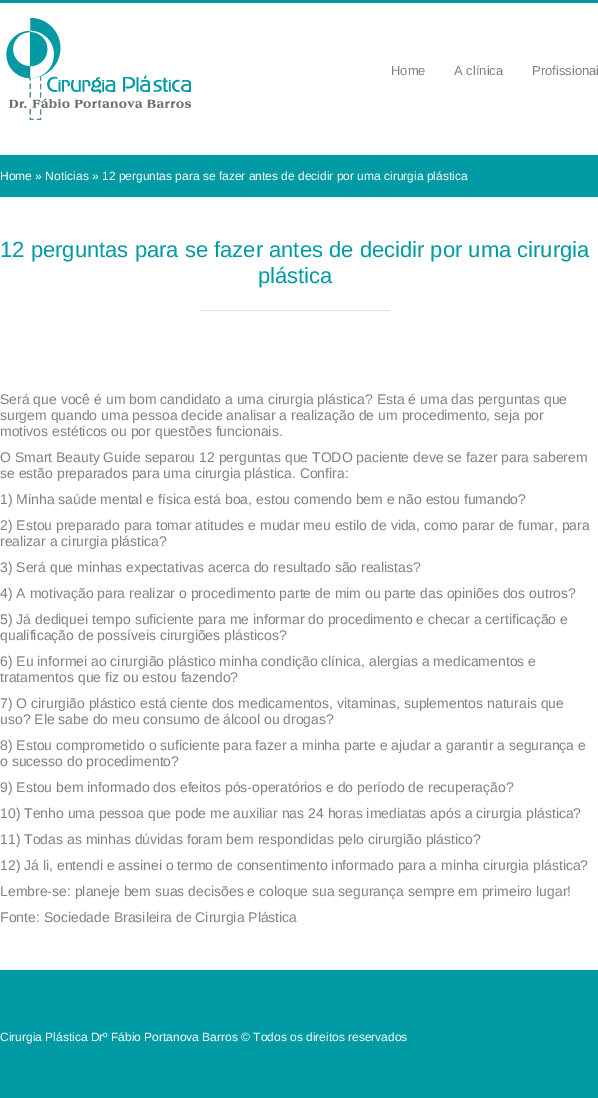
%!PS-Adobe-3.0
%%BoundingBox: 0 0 598 1098
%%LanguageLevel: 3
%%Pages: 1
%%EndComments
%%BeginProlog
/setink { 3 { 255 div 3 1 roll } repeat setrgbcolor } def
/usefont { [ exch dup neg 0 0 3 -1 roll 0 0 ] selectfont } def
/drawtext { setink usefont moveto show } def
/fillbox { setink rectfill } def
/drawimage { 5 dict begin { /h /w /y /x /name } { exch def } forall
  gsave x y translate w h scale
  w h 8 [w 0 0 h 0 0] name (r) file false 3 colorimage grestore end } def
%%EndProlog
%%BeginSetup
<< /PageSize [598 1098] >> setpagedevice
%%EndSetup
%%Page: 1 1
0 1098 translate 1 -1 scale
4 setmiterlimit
0 0 598 1098 255 255 255 fillbox
0 0 598 3 0 154 164 fillbox
(assets/img1.rgb) 6 18 185 102 drawimage
(Home) 391 75 /LiberationSans-Regular 13 130 130 130 drawtext
(A clínica) 454 75 /LiberationSans-Regular 13 130 130 130 drawtext
(Profissionai) 532 75 /LiberationSans-Regular 13 130 130 130 drawtext
0 155 598 42 0 154 164 fillbox
(Home » Notícias » 12 perguntas para se fazer antes de decidir por uma cirurgia plástica) 0 180 /LiberationSans-Regular 12 255 255 255 drawtext
(12 perguntas para se fazer antes de decidir por uma cirurgia) 0 257 /LiberationSans-Regular 22 0 154 164 drawtext
(plástica) 258 283 /LiberationSans-Regular 22 0 154 164 drawtext
200 310 190 1 226 226 226 fillbox
(Será que você é um bom candidato a uma cirurgia plástica? Esta é uma das perguntas que) 0 404 /LiberationSans-Regular 14 130 130 130 drawtext
(surgem quando uma pessoa decide analisar a realização de um procedimento, seja por) 0 420 /LiberationSans-Regular 14 130 130 130 drawtext
(motivos estéticos ou por questões funcionais.) 0 436 /LiberationSans-Regular 14 130 130 130 drawtext
(O Smart Beauty Guide separou 12 perguntas que TODO paciente deve se fazer para saberem) 0 462 /LiberationSans-Regular 14 130 130 130 drawtext
(se estão preparados para uma cirurgia plástica. Confira:) 0 478 /LiberationSans-Regular 14 130 130 130 drawtext
(1\) Minha saúde mental e física está boa, estou comendo bem e não estou fumando?) 0 504 /LiberationSans-Regular 14 130 130 130 drawtext
(2\) Estou preparado para tomar atitudes e mudar meu estilo de vida, como parar de fumar, para) 0 530 /LiberationSans-Regular 14 130 130 130 drawtext
(realizar a cirurgia plástica?) 0 546 /LiberationSans-Regular 14 130 130 130 drawtext
(3\) Será que minhas expectativas acerca do resultado são realistas?) 0 572 /LiberationSans-Regular 14 130 130 130 drawtext
(4\) A motivação para realizar o procedimento parte de mim ou parte das opiniões dos outros?) 0 598 /LiberationSans-Regular 14 130 130 130 drawtext
(5\) Já dediquei tempo suficiente para me informar do procedimento e checar a certificação e) 0 624 /LiberationSans-Regular 14 130 130 130 drawtext
(qualificação de possíveis cirurgiões plásticos?) 0 640 /LiberationSans-Regular 14 130 130 130 drawtext
(6\) Eu informei ao cirurgião plástico minha condição clínica, alergias a medicamentos e) 0 666 /LiberationSans-Regular 14 130 130 130 drawtext
(tratamentos que fiz ou estou fazendo?) 0 682 /LiberationSans-Regular 14 130 130 130 drawtext
(7\) O cirurgião plástico está ciente dos medicamentos, vitaminas, suplementos naturais que) 0 708 /LiberationSans-Regular 14 130 130 130 drawtext
(uso? Ele sabe do meu consumo de álcool ou drogas?) 0 724 /LiberationSans-Regular 14 130 130 130 drawtext
(8\) Estou comprometido o suficiente para fazer a minha parte e ajudar a garantir a segurança e) 0 750 /LiberationSans-Regular 14 130 130 130 drawtext
(o sucesso do procedimento?) 0 766 /LiberationSans-Regular 14 130 130 130 drawtext
(9\) Estou bem informado dos efeitos pós-operatórios e do período de recuperação?) 0 792 /LiberationSans-Regular 14 130 130 130 drawtext
(10\) Tenho uma pessoa que pode me auxiliar nas 24 horas imediatas após a cirurgia plástica?) 0 818 /LiberationSans-Regular 14 130 130 130 drawtext
(11\) Todas as minhas dúvidas foram bem respondidas pelo cirurgião plástico?) 0 844 /LiberationSans-Regular 14 130 130 130 drawtext
(12\) Já li, entendi e assinei o termo de consentimento informado para a minha cirurgia plástica?) 0 870 /LiberationSans-Regular 14 130 130 130 drawtext
(Lembre-se: planeje bem suas decisões e coloque sua segurança sempre em primeiro lugar!) 0 896 /LiberationSans-Regular 14 130 130 130 drawtext
(Fonte: Sociedade Brasileira de Cirurgia Plástica) 0 922 /LiberationSans-Regular 14 130 130 130 drawtext
0 970 598 128 0 154 164 fillbox
(Cirurgia Plástica Drº Fábio Portanova Barros © Todos os direitos reservados) 0 1041 /LiberationSans-Regular 12 255 255 255 drawtext
showpage
%%EOF
